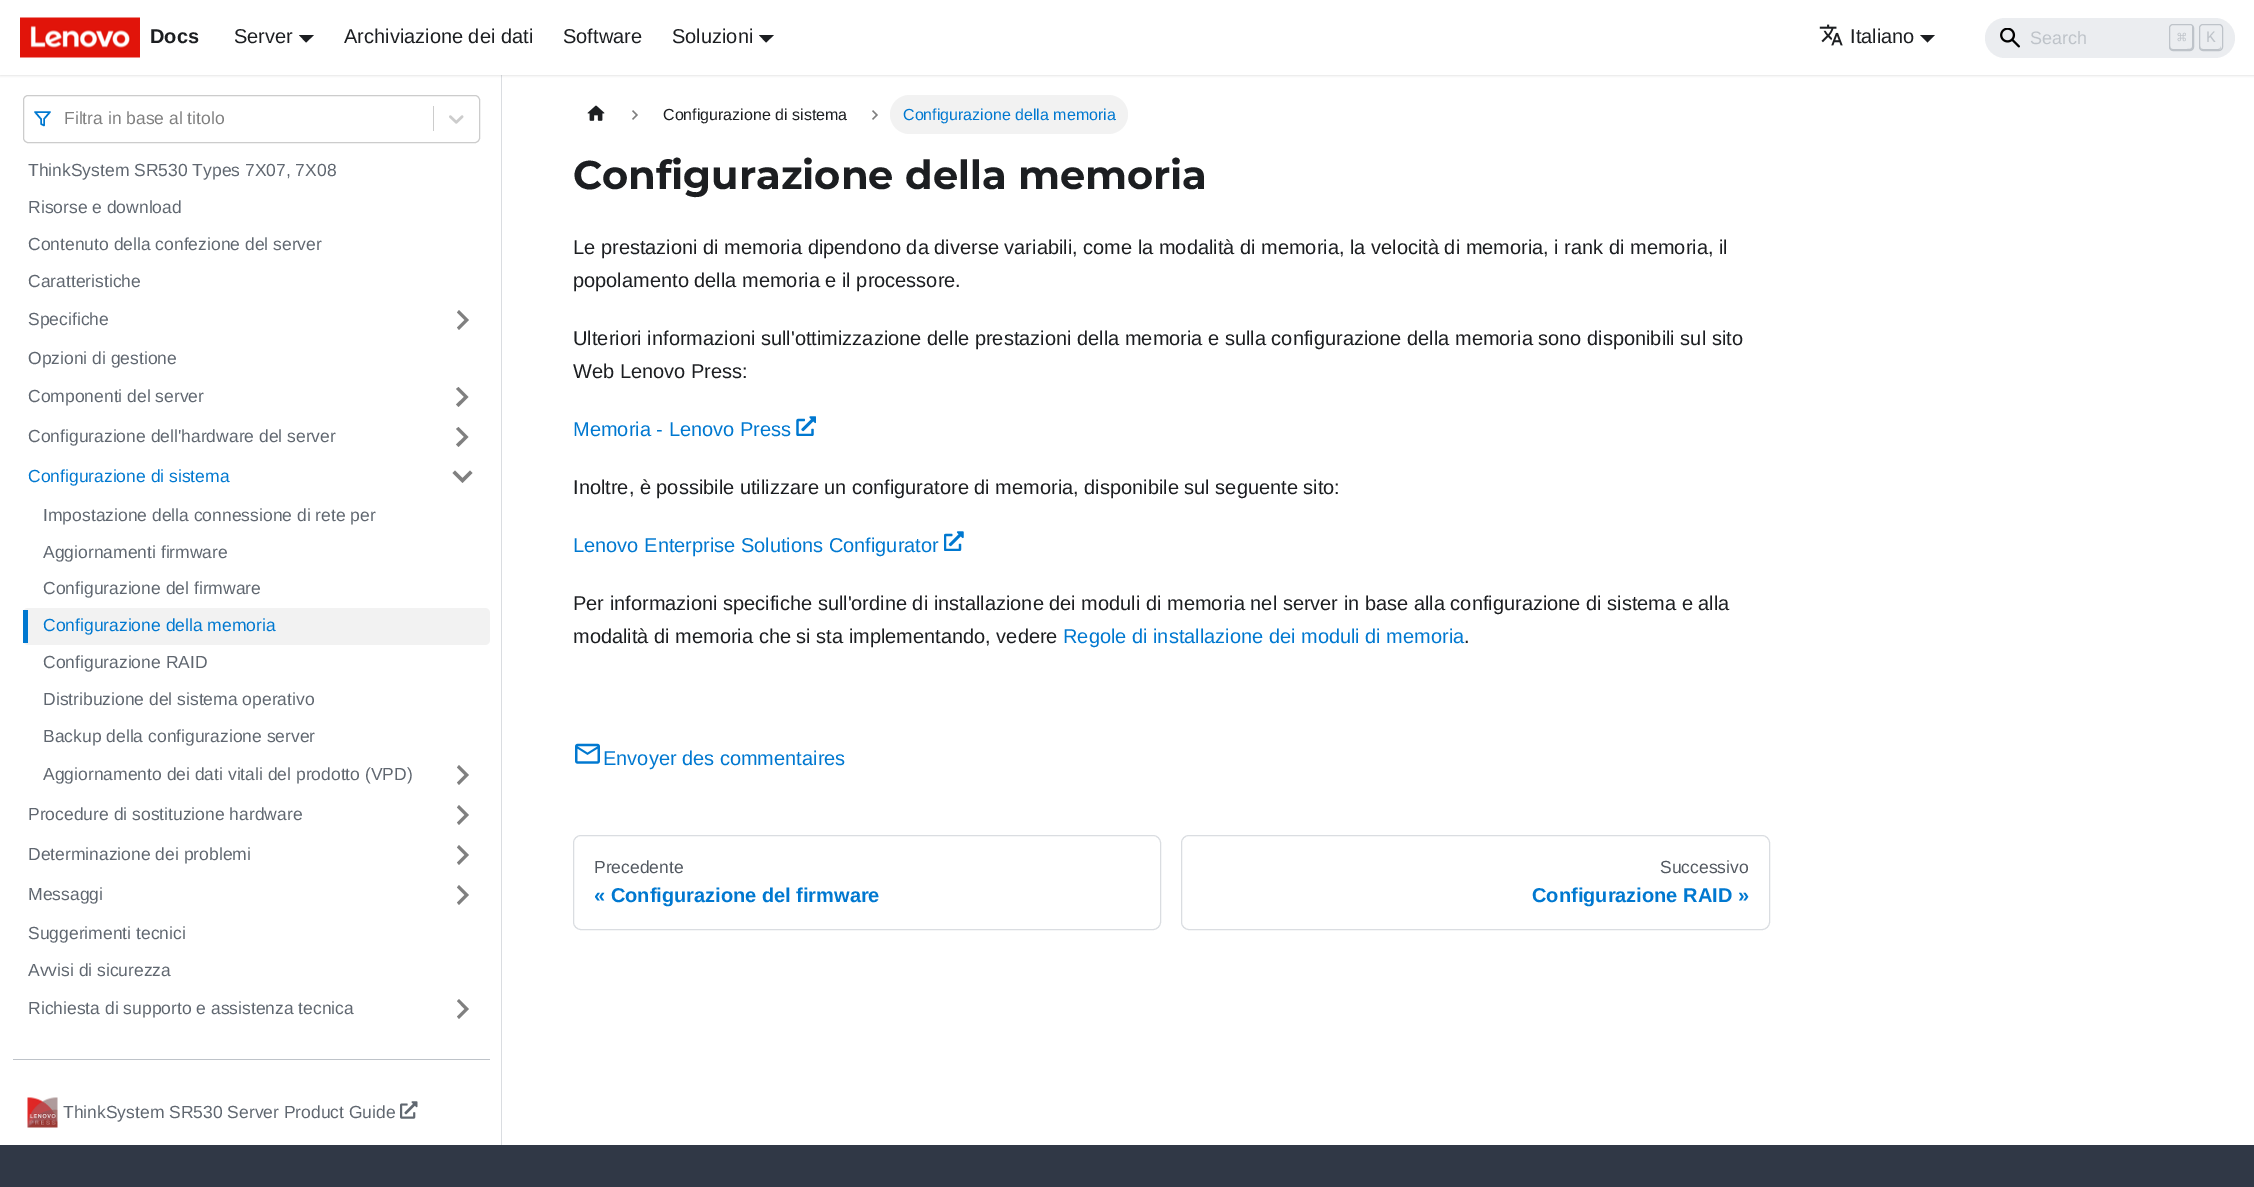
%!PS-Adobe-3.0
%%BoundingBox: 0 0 2254 1187
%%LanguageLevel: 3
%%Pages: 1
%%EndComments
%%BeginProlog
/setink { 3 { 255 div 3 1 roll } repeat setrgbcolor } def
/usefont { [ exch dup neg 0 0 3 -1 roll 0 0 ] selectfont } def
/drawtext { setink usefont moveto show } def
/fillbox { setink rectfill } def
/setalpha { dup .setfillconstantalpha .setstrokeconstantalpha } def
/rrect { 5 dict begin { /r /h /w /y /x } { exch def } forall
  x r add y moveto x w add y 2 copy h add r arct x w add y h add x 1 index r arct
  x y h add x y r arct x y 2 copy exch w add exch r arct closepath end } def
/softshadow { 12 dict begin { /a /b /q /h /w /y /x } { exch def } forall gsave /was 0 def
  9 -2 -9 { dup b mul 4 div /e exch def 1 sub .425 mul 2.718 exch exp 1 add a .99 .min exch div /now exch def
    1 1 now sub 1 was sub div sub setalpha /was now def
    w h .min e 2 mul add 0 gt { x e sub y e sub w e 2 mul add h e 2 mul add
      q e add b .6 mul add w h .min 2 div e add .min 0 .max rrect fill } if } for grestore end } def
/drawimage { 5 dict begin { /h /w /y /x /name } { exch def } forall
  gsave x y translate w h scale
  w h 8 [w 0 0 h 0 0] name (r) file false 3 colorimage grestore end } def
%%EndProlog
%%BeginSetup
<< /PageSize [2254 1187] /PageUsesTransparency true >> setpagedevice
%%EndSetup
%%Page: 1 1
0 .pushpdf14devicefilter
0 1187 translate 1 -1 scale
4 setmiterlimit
0 0 2254 1187 255 255 255 fillbox
501 75 1 1070 218 221 225 fillbox
0 0 0 setink
0 1 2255 75 0 1 0.1 softshadow
0 0 2254 75 255 255 255 fillbox
(assets/img1.rgb) 20 17 120 41 drawimage
(Docs) 150 43 /LiberationSans-Bold 20 28 30 33 drawtext
(Server) 234 43 /LiberationSans-Regular 20 28 30 33 drawtext
299 35 moveto 314 35 lineto 306 42.5 lineto closepath fill
(Archiviazione dei dati) 344 43 /LiberationSans-Regular 20 28 30 33 drawtext
(Software) 563 43 /LiberationSans-Regular 20 28 30 33 drawtext
(Soluzioni) 672 43 /LiberationSans-Regular 20 28 30 33 drawtext
759 35 moveto 774 35 lineto 766 42.5 lineto closepath fill
(assets/img2.rgb) 1819 24 24 22 drawimage
(Italiano) 1850 43 /LiberationSans-Regular 20 28 30 33 drawtext
1920 35 moveto 1935 35 lineto 1927.5 42.5 lineto closepath fill
235 237 240 setink
1985 18 250 40 20 rrect fill
(assets/img3.rgb) 2000 28 20 20 drawimage
(Search) 2030 44 /LiberationSans-Regular 18 190 195 201 drawtext
2170 46 moveto 2170 47.5 lineto 2170 49 2171 50 2172.5 50 curveto 2190.5 50 lineto 2192 50 2193 49 2193 47.5 curveto 2193 27.5 lineto 2193 26.5 2192.5 26 2192 25.5 curveto 2192 39.5 lineto 2192 49.5 2193.5 49 2184.5 49 curveto 2172.5 49 lineto 2170.5 48.5 2170 47.5 2170 46 curveto closepath fill
2169.5 24.5 24 26 3.5 rrect stroke
(⌘) 2177 43 /DejaVuSansMono-Regular 16 190 195 201 drawtext
2200 46 moveto 2200 50 2201.5 50 2205 50 curveto 2216 50 lineto 2219.5 50 2221 50 2221 46 curveto 2221 48 2220 49 2218 49 curveto 2203 49 lineto 2201 49 2200 48 2200 46 curveto closepath fill
2199.5 24.5 23 26 3.5 rrect stroke
(K) 2206 42 /LiberationMono-Regular 16 190 195 201 drawtext
204 204 204 setink
23.5 95.5 456 47 4.5 rrect stroke
0 120 208 setink
1.5 setlinewidth
1 setlinecap
1 setlinejoin
50 112 moveto 35 112 lineto 41 119 lineto 41 124 lineto 44 125.5 lineto 44 119 lineto closepath stroke
(Filtra in base al titolo) 64 124 /LiberationSans-Regular 17.5 128 128 128 drawtext
433 106 1 25 204 204 204 fillbox
(assets/img4.rgb) 449 115 15 9 drawimage
(ThinkSystem SR530 Types 7X07, 7X08) 28 176 /LiberationSans-Regular 17.5 96 103 112 drawtext
(Risorse e download) 28 213 /LiberationSans-Regular 17.5 96 103 112 drawtext
(Contenuto della confezione del server) 28 250 /LiberationSans-Regular 17.5 96 103 112 drawtext
(Caratteristiche) 28 287 /LiberationSans-Regular 17.5 96 103 112 drawtext
(Specifiche) 28 325 /LiberationSans-Regular 17.5 96 103 112 drawtext
128 128 128 setink
457 312.5 moveto 464.5 320 lineto 457 327.5 lineto 459 330 lineto 469 320 lineto 459 310 lineto closepath fill
(Opzioni di gestione) 28 364 /LiberationSans-Regular 17.5 96 103 112 drawtext
(Componenti del server) 28 402 /LiberationSans-Regular 17.5 96 103 112 drawtext
128 128 128 setink
456 389 moveto 464 397 lineto 456 404.5 lineto 458.5 407 lineto 468.5 397 lineto 458.5 387 lineto closepath fill
(Configurazione dell'hardware del server) 28 442 /LiberationSans-Regular 17.5 96 103 112 drawtext
128 128 128 setink
456 429 moveto 464 437 lineto 456 444.5 lineto 458.5 447 lineto 468.5 437 lineto 458.5 427 lineto closepath fill
(Configurazione di sistema) 28 482 /LiberationSans-Regular 17.5 0 120 208 drawtext
128 128 128 setink
470 470.5 moveto 462.5 478 lineto 455 470.5 lineto 452.5 473 lineto 462.5 483 lineto 472.5 473 lineto closepath fill
(Impostazione della connessione di rete per) 43 521 /LiberationSans-Regular 17.5 96 103 112 drawtext
(Aggiornamenti firmware) 43 558 /LiberationSans-Regular 17.5 96 103 112 drawtext
(Configurazione del firmware) 43 594 /LiberationSans-Regular 17.5 96 103 112 drawtext
242 242 242 setink
23 608 467 37 5 rrect fill
23 610 5 33 0 120 208 fillbox
(Configurazione della memoria) 43 631 /LiberationSans-Regular 17.5 0 120 208 drawtext
(Configurazione RAID) 43 668 /LiberationSans-Regular 17.5 96 103 112 drawtext
(Distribuzione del sistema operativo) 43 705 /LiberationSans-Regular 17.5 96 103 112 drawtext
(Backup della configurazione server) 43 742 /LiberationSans-Regular 17.5 96 103 112 drawtext
(Aggiornamento dei dati vitali del prodotto \(VPD\)) 43 780 /LiberationSans-Regular 17.5 96 103 112 drawtext
128 128 128 setink
457 767.5 moveto 464.5 775 lineto 457 782.5 lineto 459 785 lineto 469 775 lineto 459 765 lineto closepath fill
(Procedure di sostituzione hardware) 28 820 /LiberationSans-Regular 17.5 96 103 112 drawtext
128 128 128 setink
457 807.5 moveto 464.5 815 lineto 457 822.5 lineto 459 825 lineto 469 815 lineto 459 805 lineto closepath fill
(Determinazione dei problemi) 28 860 /LiberationSans-Regular 17.5 96 103 112 drawtext
128 128 128 setink
457 847.5 moveto 464.5 855 lineto 457 862.5 lineto 459 865 lineto 469 855 lineto 459 845 lineto closepath fill
(Messaggi) 28 900 /LiberationSans-Regular 17.5 96 103 112 drawtext
128 128 128 setink
457 887.5 moveto 464.5 895 lineto 457 902.5 lineto 459 905 lineto 469 895 lineto 459 885 lineto closepath fill
(Suggerimenti tecnici) 28 939 /LiberationSans-Regular 17.5 96 103 112 drawtext
(Avvisi di sicurezza) 28 976 /LiberationSans-Regular 17.5 96 103 112 drawtext
(Richiesta di supporto e assistenza tecnica) 28 1014 /LiberationSans-Regular 17.5 96 103 112 drawtext
128 128 128 setink
457 1001 moveto 464.5 1009 lineto 457 1016.5 lineto 459 1019 lineto 469 1009 lineto 459 999 lineto closepath fill
13 1059 477 1 190 195 201 fillbox
(assets/img5.rgb) 27 1097 31 31 drawimage
(ThinkSystem SR530 Server Product Guide) 63 1118 /LiberationSans-Regular 17.5 96 103 112 drawtext
(assets/img6.rgb) 400 1101 18 18 drawimage
(assets/img7.rgb) 587 105 18 16 drawimage
(assets/img8.rgb) 632 110 6 10 drawimage
(Configurazione di sistema) 663 120 /LiberationSans-Regular 16 28 30 33 drawtext
(assets/img8.rgb) 872 110 6 10 drawimage
242 242 242 setink
890 95 238 39 19.5 rrect fill
(Configurazione della memoria) 903 120 /LiberationSans-Regular 16 0 120 208 drawtext
(Configurazione della memoria) 573 189 /Montserrat-Bold 40 28 30 33 drawtext
(Le prestazioni di memoria dipendono da diverse variabili, come la modalità di memoria, la velocità di memoria, i rank di memoria, il) 573 254 /LiberationSans-Regular 20 28 30 33 drawtext
(popolamento della memoria e il processore.) 573 287 /LiberationSans-Regular 20 28 30 33 drawtext
(Ulteriori informazioni sull'ottimizzazione delle prestazioni della memoria e sulla configurazione della memoria sono disponibili sul sito) 573 345 /LiberationSans-Regular 20 28 30 33 drawtext
(Web Lenovo Press:) 573 378 /LiberationSans-Regular 20 28 30 33 drawtext
(Memoria - Lenovo Press) 573 436 /LiberationSans-Regular 20 0 120 208 drawtext
(assets/img9.rgb) 796 416 20 20 drawimage
(Inoltre, è possibile utilizzare un configuratore di memoria, disponibile sul seguente sito:) 573 494 /LiberationSans-Regular 20 28 30 33 drawtext
(Lenovo Enterprise Solutions Configurator) 573 552 /LiberationSans-Regular 20 0 120 208 drawtext
(assets/img10.rgb) 944 531 20 20 drawimage
(Per informazioni specifiche sull'ordine di installazione dei moduli di memoria nel server in base alla configurazione di sistema e alla) 573 610 /LiberationSans-Regular 20 28 30 33 drawtext
(modalità di memoria che si sta implementando, vedere) 573 643 /LiberationSans-Regular 20 28 30 33 drawtext
(Regole di installazione dei moduli di memoria) 1063 643 /LiberationSans-Regular 20 0 120 208 drawtext
(.) 1464 643 /LiberationSans-Regular 20 28 30 33 drawtext
(assets/img11.rgb) 575 743 25 21 drawimage
(Envoyer des commentaires) 603 765 /LiberationSans-Regular 20 0 120 208 drawtext
218 221 225 setink
1 setlinewidth
0 setlinecap
0 setlinejoin
573.5 835.5 587 94 7.5 rrect stroke
(Precedente) 594 873 /LiberationSans-Regular 17.5 82 88 96 drawtext
(« Configurazione del firmware) 594 902 /LiberationSans-Bold 20 0 120 208 drawtext
218 221 225 setink
1181.5 835.5 588 94 7.5 rrect stroke
(Successivo) 1660 873 /LiberationSans-Regular 17.5 82 88 96 drawtext
(Configurazione RAID ») 1532 902 /LiberationSans-Bold 20 0 120 208 drawtext
0 1145 2254 42 48 56 70 fillbox
.poppdf14devicefilter showpage
%%EOF
